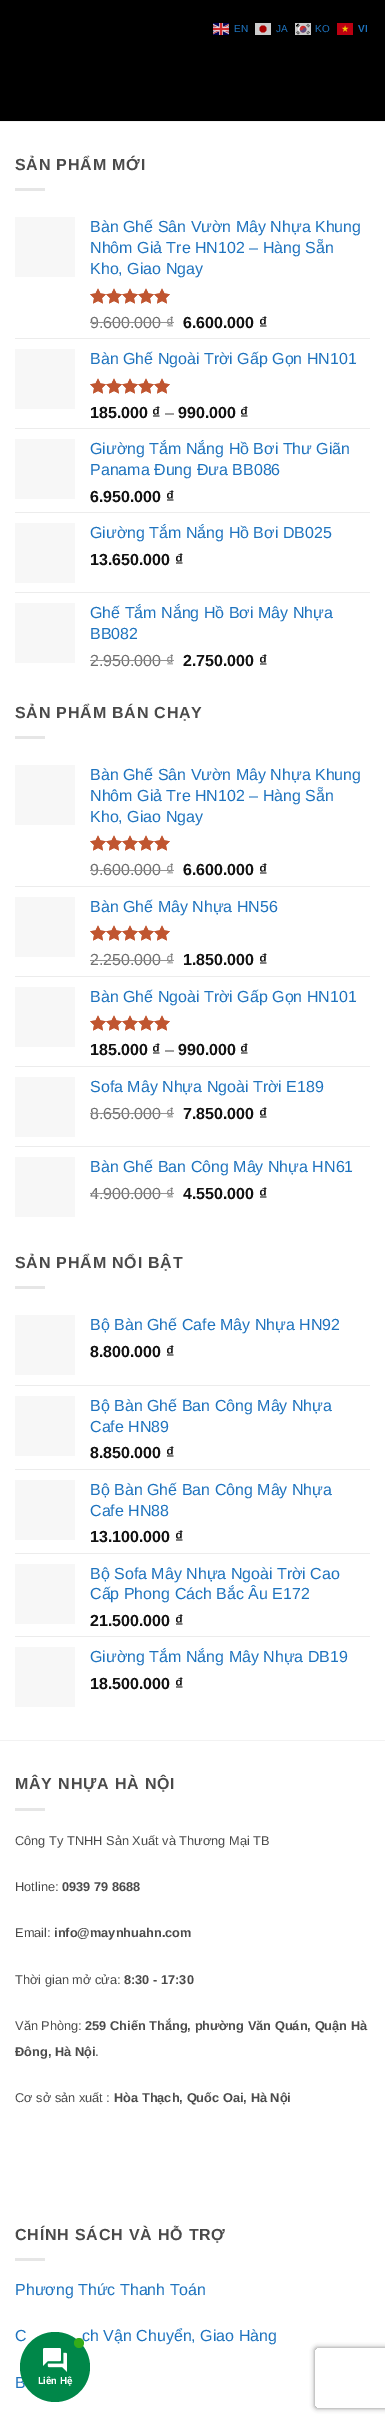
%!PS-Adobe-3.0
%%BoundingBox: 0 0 385 2422
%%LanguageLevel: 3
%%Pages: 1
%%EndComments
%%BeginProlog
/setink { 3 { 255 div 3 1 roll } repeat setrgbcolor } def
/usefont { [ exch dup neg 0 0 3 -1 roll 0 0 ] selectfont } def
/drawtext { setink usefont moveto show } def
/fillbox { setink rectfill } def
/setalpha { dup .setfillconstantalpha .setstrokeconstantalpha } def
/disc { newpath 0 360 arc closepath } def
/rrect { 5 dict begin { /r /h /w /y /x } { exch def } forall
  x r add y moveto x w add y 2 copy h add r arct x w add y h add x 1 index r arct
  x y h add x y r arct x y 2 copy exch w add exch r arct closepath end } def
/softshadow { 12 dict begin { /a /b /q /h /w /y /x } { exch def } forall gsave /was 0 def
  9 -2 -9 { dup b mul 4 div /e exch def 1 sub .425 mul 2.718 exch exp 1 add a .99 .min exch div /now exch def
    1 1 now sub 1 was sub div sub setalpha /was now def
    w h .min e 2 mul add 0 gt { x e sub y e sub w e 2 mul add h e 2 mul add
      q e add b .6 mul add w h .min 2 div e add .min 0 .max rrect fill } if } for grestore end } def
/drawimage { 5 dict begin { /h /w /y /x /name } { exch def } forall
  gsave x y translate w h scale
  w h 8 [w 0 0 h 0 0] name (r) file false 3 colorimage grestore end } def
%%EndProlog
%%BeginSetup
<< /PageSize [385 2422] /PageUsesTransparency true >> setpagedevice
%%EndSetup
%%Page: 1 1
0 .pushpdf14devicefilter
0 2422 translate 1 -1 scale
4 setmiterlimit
0 0 385 2422 255 255 255 fillbox
0 0 385 121 0 0 0 fillbox
(assets/img1.rgb) 213 23 16 12 drawimage
(EN) 234 32 /LiberationSans-Regular 10 30 115 190 drawtext
(JA) 276 32 /LiberationSans-Regular 10 30 115 190 drawtext
255 23 16 12 204 204 204 fillbox
169 0 0 setink
263 29 3.5 disc fill
(assets/img2.rgb) 295 23 16 12 drawimage
(KO) 315 32 /LiberationSans-Regular 10 30 115 190 drawtext
(assets/img3.rgb) 337 23 16 12 drawimage
(VI) 358 32 /LiberationSans-Bold 10 30 115 190 drawtext
0 121 385 1 242 242 242 fillbox
/LiberationSans-Bold 16 usefont
74 74 74 setink
15 170 moveto 0.8 0 (SẢN PHẨM MỚI) ashow
15 188 30 3 230 230 230 fillbox
15 217 60 60 247 247 247 fillbox
(Bàn Ghế Sân Vườn Mây Nhựa Khung) 90 232 /LiberationSans-Regular 16 30 115 190 drawtext
(Nhôm Giả Tre HN102 – Hàng Sẵn) 90 253 /LiberationSans-Regular 16 30 115 190 drawtext
(Kho, Giao Ngay) 90 274 /LiberationSans-Regular 16 30 115 190 drawtext
(assets/img4.rgb) 90 288 80 16 drawimage
(assets/img5.rgb) 90 288 80 16 drawimage
(9.600.000 ₫) 90 328 /LiberationSans-Regular 16 112 112 112 drawtext
90 322 84 1 146 146 146 fillbox
(6.600.000 ₫) 183 328 /LiberationSans-Bold 16 17 17 17 drawtext
15 338 355 1 236 236 236 fillbox
15 349 60 60 247 247 247 fillbox
(Bàn Ghế Ngoài Trời Gấp Gọn HN101) 90 364 /LiberationSans-Regular 16 30 115 190 drawtext
(assets/img4.rgb) 90 378 80 16 drawimage
(assets/img5.rgb) 90 378 80 16 drawimage
(185.000 ₫) 90 418 /LiberationSans-Bold 16 17 17 17 drawtext
(–) 165 418 /LiberationSans-Regular 16 74 74 74 drawtext
(990.000 ₫) 178 418 /LiberationSans-Bold 16 17 17 17 drawtext
15 428 355 1 236 236 236 fillbox
15 439 60 60 247 247 247 fillbox
(Giường Tắm Nắng Hồ Bơi Thư Giãn) 90 454 /LiberationSans-Regular 16 30 115 190 drawtext
(Panama Đung Đưa BB086) 90 475 /LiberationSans-Regular 16 30 115 190 drawtext
(6.950.000 ₫) 90 502 /LiberationSans-Bold 16 17 17 17 drawtext
15 512 355 1 236 236 236 fillbox
15 523 60 60 247 247 247 fillbox
(Giường Tắm Nắng Hồ Bơi DB025) 90 538 /LiberationSans-Regular 16 30 115 190 drawtext
(13.650.000 ₫) 90 565 /LiberationSans-Bold 16 17 17 17 drawtext
15 592 355 1 236 236 236 fillbox
15 603 60 60 247 247 247 fillbox
(Ghế Tắm Nắng Hồ Bơi Mây Nhựa) 90 618 /LiberationSans-Regular 16 30 115 190 drawtext
(BB082) 90 639 /LiberationSans-Regular 16 30 115 190 drawtext
(2.950.000 ₫) 90 666 /LiberationSans-Regular 16 112 112 112 drawtext
90 660 84 1 146 146 146 fillbox
(2.750.000 ₫) 183 666 /LiberationSans-Bold 16 17 17 17 drawtext
74 74 74 setink
15 718 moveto 0.8 0 (SẢN PHẨM BÁN CHẠY) ashow
15 736 30 3 230 230 230 fillbox
15 765 60 60 247 247 247 fillbox
(Bàn Ghế Sân Vườn Mây Nhựa Khung) 90 780 /LiberationSans-Regular 16 30 115 190 drawtext
(Nhôm Giả Tre HN102 – Hàng Sẵn) 90 801 /LiberationSans-Regular 16 30 115 190 drawtext
(Kho, Giao Ngay) 90 822 /LiberationSans-Regular 16 30 115 190 drawtext
(assets/img4.rgb) 90 835 80 16 drawimage
(assets/img5.rgb) 90 835 80 16 drawimage
(9.600.000 ₫) 90 875 /LiberationSans-Regular 16 112 112 112 drawtext
90 870 84 1 146 146 146 fillbox
(6.600.000 ₫) 183 875 /LiberationSans-Bold 16 17 17 17 drawtext
15 886 355 1 236 236 236 fillbox
15 897 60 60 247 247 247 fillbox
(Bàn Ghế Mây Nhựa HN56) 90 912 /LiberationSans-Regular 16 30 115 190 drawtext
(assets/img4.rgb) 90 925 80 16 drawimage
(assets/img5.rgb) 90 925 80 16 drawimage
(2.250.000 ₫) 90 965 /LiberationSans-Regular 16 112 112 112 drawtext
90 960 84 1 146 146 146 fillbox
(1.850.000 ₫) 183 965 /LiberationSans-Bold 16 17 17 17 drawtext
15 976 355 1 236 236 236 fillbox
15 987 60 60 247 247 247 fillbox
(Bàn Ghế Ngoài Trời Gấp Gọn HN101) 90 1002 /LiberationSans-Regular 16 30 115 190 drawtext
(assets/img4.rgb) 90 1015 80 16 drawimage
(assets/img5.rgb) 90 1015 80 16 drawimage
(185.000 ₫) 90 1055 /LiberationSans-Bold 16 17 17 17 drawtext
(–) 165 1055 /LiberationSans-Regular 16 74 74 74 drawtext
(990.000 ₫) 178 1055 /LiberationSans-Bold 16 17 17 17 drawtext
15 1066 355 1 236 236 236 fillbox
15 1077 60 60 247 247 247 fillbox
(Sofa Mây Nhựa Ngoài Trời E189) 90 1092 /LiberationSans-Regular 16 30 115 190 drawtext
(8.650.000 ₫) 90 1119 /LiberationSans-Regular 16 112 112 112 drawtext
90 1113 84 1 146 146 146 fillbox
(7.850.000 ₫) 183 1119 /LiberationSans-Bold 16 17 17 17 drawtext
15 1146 355 1 236 236 236 fillbox
15 1157 60 60 247 247 247 fillbox
(Bàn Ghế Ban Công Mây Nhựa HN61) 90 1172 /LiberationSans-Regular 16 30 115 190 drawtext
(4.900.000 ₫) 90 1199 /LiberationSans-Regular 16 112 112 112 drawtext
90 1193 84 1 146 146 146 fillbox
(4.550.000 ₫) 183 1199 /LiberationSans-Bold 16 17 17 17 drawtext
74 74 74 setink
15 1268 moveto 0.8 0 (SẢN PHẨM NỔI BẬT) ashow
15 1286 30 3 230 230 230 fillbox
15 1315 60 60 247 247 247 fillbox
(Bộ Bàn Ghế Cafe Mây Nhựa HN92) 90 1330 /LiberationSans-Regular 16 30 115 190 drawtext
(8.800.000 ₫) 90 1357 /LiberationSans-Bold 16 17 17 17 drawtext
15 1385 355 1 236 236 236 fillbox
15 1396 60 60 247 247 247 fillbox
(Bộ Bàn Ghế Ban Công Mây Nhựa) 90 1411 /LiberationSans-Regular 16 30 115 190 drawtext
(Cafe HN89) 90 1432 /LiberationSans-Regular 16 30 115 190 drawtext
(8.850.000 ₫) 90 1458 /LiberationSans-Bold 16 17 17 17 drawtext
15 1469 355 1 236 236 236 fillbox
15 1480 60 60 247 247 247 fillbox
(Bộ Bàn Ghế Ban Công Mây Nhựa) 90 1495 /LiberationSans-Regular 16 30 115 190 drawtext
(Cafe HN88) 90 1516 /LiberationSans-Regular 16 30 115 190 drawtext
(13.100.000 ₫) 90 1542 /LiberationSans-Bold 16 17 17 17 drawtext
15 1553 355 1 236 236 236 fillbox
15 1564 60 60 247 247 247 fillbox
(Bộ Sofa Mây Nhựa Ngoài Trời Cao) 90 1579 /LiberationSans-Regular 16 30 115 190 drawtext
(Cấp Phong Cách Bắc Âu E172) 90 1599 /LiberationSans-Regular 16 30 115 190 drawtext
(21.500.000 ₫) 90 1626 /LiberationSans-Bold 16 17 17 17 drawtext
15 1636 355 1 236 236 236 fillbox
15 1647 60 60 247 247 247 fillbox
(Giường Tắm Nắng Mây Nhựa DB19) 90 1662 /LiberationSans-Regular 16 30 115 190 drawtext
(18.500.000 ₫) 90 1689 /LiberationSans-Bold 16 17 17 17 drawtext
0 1740 385 1 242 242 242 fillbox
74 74 74 setink
15 1789 moveto 0.8 0 (MÂY NHỰA HÀ NỘI) ashow
15 1808 30 3 230 230 230 fillbox
(Công Ty TNHH Sản Xuất và Thương Mại TB) 15 1845 /LiberationSans-Regular 12.8 74 74 74 drawtext
(Hotline:) 15 1891 /LiberationSans-Regular 12.8 74 74 74 drawtext
(0939 79 8688) 62 1891 /LiberationSans-Bold 12.8 74 74 74 drawtext
(Email:) 15 1937 /LiberationSans-Regular 12.8 74 74 74 drawtext
(info@maynhuahn.com) 54 1937 /LiberationSans-Bold 12.8 74 74 74 drawtext
(Thời gian mở cửa:) 15 1984 /LiberationSans-Regular 12.8 74 74 74 drawtext
(8:30 - 17:30) 124 1984 /LiberationSans-Bold 12.8 74 74 74 drawtext
(Văn Phòng:) 15 2030 /LiberationSans-Regular 12.8 74 74 74 drawtext
(259 Chiến Thắng, phường Văn Quán, Quận Hà) 85 2030 /LiberationSans-Bold 12.8 74 74 74 drawtext
(Đông, Hà Nội) 15 2056 /LiberationSans-Bold 12.8 74 74 74 drawtext
(.) 95 2056 /LiberationSans-Regular 12.8 74 74 74 drawtext
(Cơ sở sản xuất :) 15 2102 /LiberationSans-Regular 12.8 74 74 74 drawtext
(Hòa Thạch, Quốc Oai, Hà Nội) 114 2102 /LiberationSans-Bold 12.8 74 74 74 drawtext
/LiberationSans-Bold 16 usefont
15 2240 moveto 0.8 0 (CHÍNH SÁCH VÀ HỖ TRỢ) ashow
15 2258 30 3 230 230 230 fillbox
(Phương Thức Thanh Toán) 15 2295 /LiberationSans-Regular 16 30 115 190 drawtext
(C) 15 2341 /LiberationSans-Regular 16 30 115 190 drawtext
(ch Vận Chuyển, Giao Hàng) 82 2341 /LiberationSans-Regular 16 30 115 190 drawtext
(B) 15 2388 /LiberationSans-Regular 16 30 115 190 drawtext
0 135 73 setink
55 2367 35 disc fill
53 172 25 setink
79 2343 5 disc fill
(assets/img6.rgb) 43 2348 24 24 drawimage
(Liên Hệ) 38 2384 /Roboto-Bold 10 255 255 255 drawtext
gsave
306 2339 moveto 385 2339 lineto 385 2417 lineto 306 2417 lineto closepath 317 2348 moveto 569 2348 lineto 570 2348 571 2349 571 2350 curveto 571 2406 lineto 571 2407 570 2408 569 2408 curveto 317 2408 lineto 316 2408 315 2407 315 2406 curveto 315 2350 lineto 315 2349 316 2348 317 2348 curveto closepath eoclip newpath
128 128 128 setink
315 2348 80 60 2 2.5 1 softshadow
grestore
.poppdf14devicefilter showpage
%%EOF
